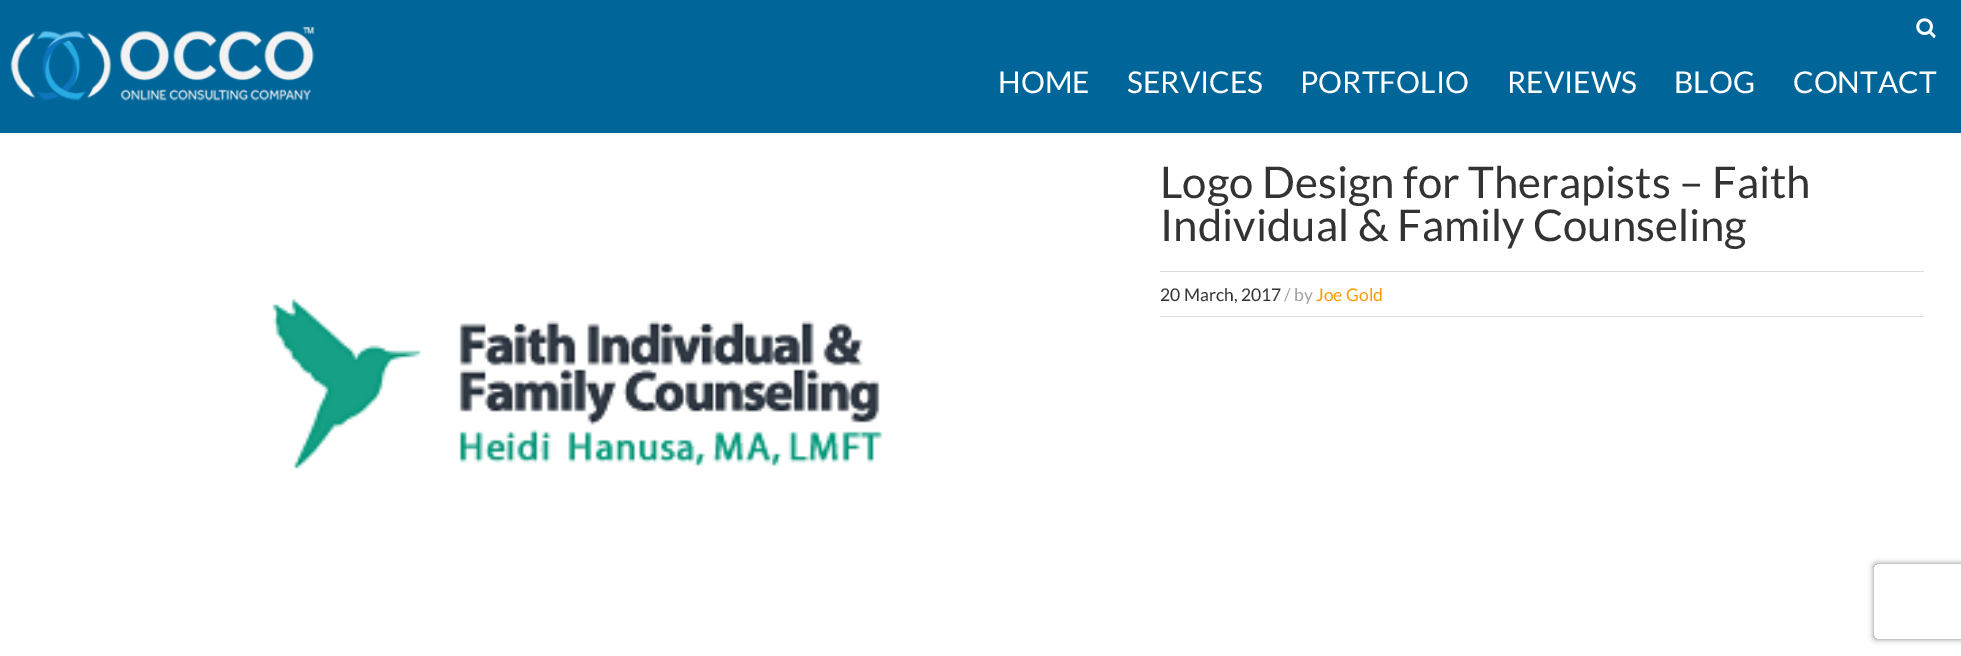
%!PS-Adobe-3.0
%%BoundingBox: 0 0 1961 656
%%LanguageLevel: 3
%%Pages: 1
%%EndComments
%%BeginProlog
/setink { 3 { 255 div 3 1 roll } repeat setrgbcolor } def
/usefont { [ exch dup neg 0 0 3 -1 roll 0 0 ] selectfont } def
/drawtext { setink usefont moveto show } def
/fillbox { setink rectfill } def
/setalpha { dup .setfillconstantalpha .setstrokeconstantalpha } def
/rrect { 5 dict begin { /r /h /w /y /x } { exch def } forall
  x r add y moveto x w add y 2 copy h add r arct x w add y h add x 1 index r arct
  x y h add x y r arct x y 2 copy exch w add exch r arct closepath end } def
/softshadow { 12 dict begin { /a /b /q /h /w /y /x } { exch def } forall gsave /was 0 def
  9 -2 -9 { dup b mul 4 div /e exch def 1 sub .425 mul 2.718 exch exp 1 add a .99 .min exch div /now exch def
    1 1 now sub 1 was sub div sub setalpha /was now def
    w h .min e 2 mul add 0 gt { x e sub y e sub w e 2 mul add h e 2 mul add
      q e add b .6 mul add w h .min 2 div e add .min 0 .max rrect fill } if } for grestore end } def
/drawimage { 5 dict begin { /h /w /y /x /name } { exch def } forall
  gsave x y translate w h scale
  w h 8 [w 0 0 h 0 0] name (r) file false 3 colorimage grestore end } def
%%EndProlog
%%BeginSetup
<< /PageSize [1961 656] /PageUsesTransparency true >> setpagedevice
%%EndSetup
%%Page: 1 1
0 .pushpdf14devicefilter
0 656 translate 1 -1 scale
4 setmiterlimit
0 0 1961 656 255 255 255 fillbox
0 0 1961 133 0 102 153 fillbox
(assets/img1.rgb) 10 27 305 74 drawimage
(assets/img2.rgb) 1916 18 20 20 drawimage
(HOME) 998 93 /Lato-Regular 30 255 255 255 drawtext
(SERVICES) 1127 93 /Lato-Regular 30 255 255 255 drawtext
(PORTFOLIO) 1300 93 /Lato-Regular 30 255 255 255 drawtext
(REVIEWS) 1507 93 /Lato-Regular 30 255 255 255 drawtext
(BLOG) 1674 93 /Lato-Regular 30 255 255 255 drawtext
(CONTACT) 1793 93 /Lato-Regular 30 255 255 255 drawtext
(Logo Design for Therapists – Faith) 1160 198 /Lato-Regular 43.75 51 51 51 drawtext
(Individual & Family Counseling) 1160 241 /Lato-Regular 43.75 51 51 51 drawtext
1160 271 764 1 221 220 220 fillbox
1160 316 764 1 221 220 220 fillbox
(20 March, 2017) 1160 301 /Lato-Regular 17.5 51 51 51 drawtext
(/ by) 1284 301 /Lato-Regular 17.5 164 164 164 drawtext
(Joe Gold) 1316 301 /Lato-Regular 17.5 253 154 0 drawtext
(assets/img3.rgb) 272 298 610 171 drawimage
gsave
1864 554 moveto 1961 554 lineto 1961 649 lineto 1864 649 lineto closepath 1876.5 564 moveto 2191.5 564 lineto 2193 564 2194 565 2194 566.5 curveto 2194 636.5 lineto 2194 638 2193 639 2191.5 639 curveto 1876.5 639 lineto 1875 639 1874 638 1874 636.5 curveto 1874 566.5 lineto 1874 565 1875 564 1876.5 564 curveto closepath eoclip newpath
128 128 128 setink
1874 564 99 75 2.5 3 1 softshadow
grestore
.poppdf14devicefilter showpage
%%EOF
